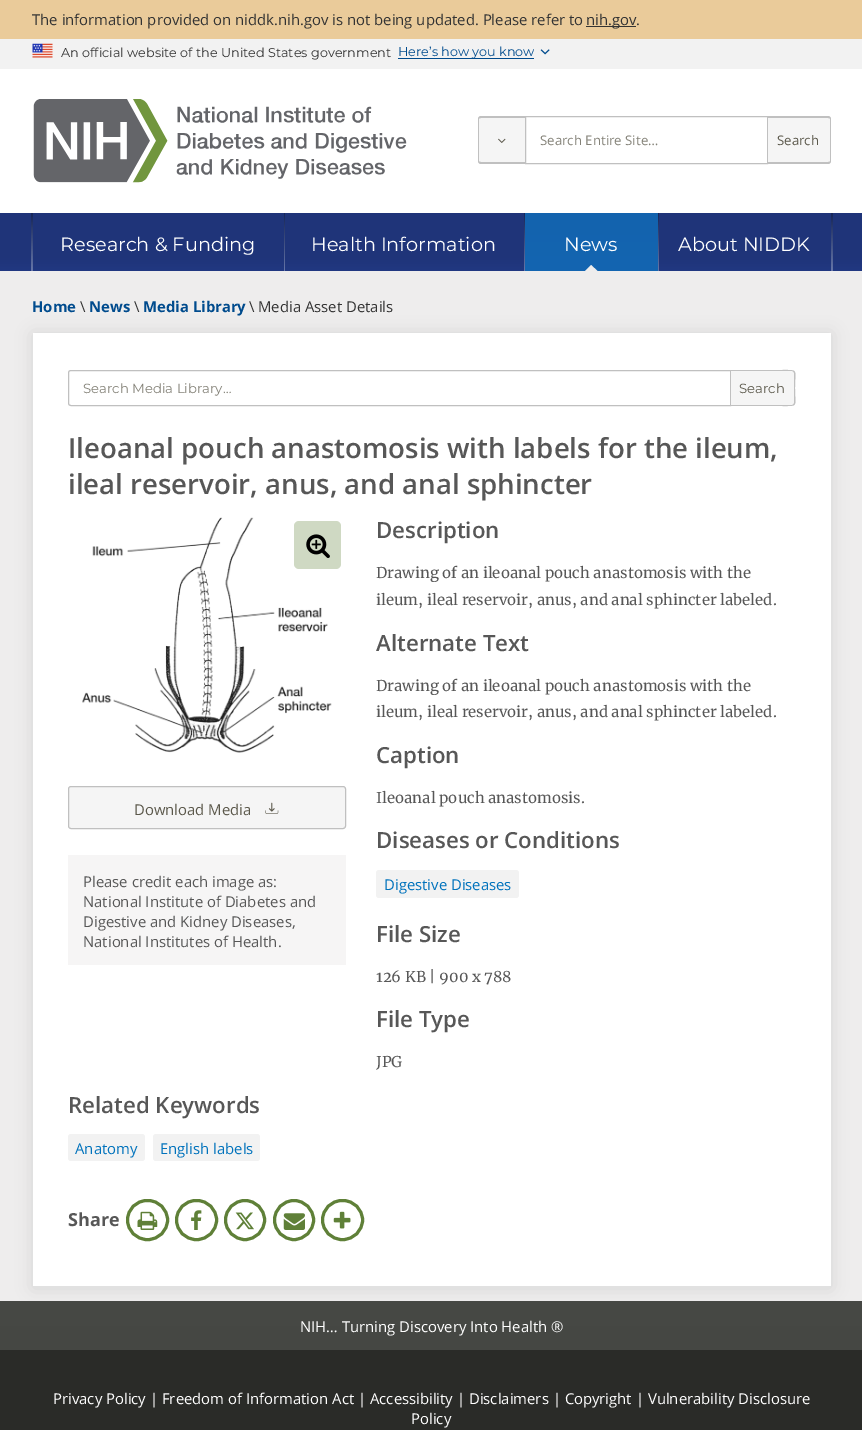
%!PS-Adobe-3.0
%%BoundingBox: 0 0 862 1430
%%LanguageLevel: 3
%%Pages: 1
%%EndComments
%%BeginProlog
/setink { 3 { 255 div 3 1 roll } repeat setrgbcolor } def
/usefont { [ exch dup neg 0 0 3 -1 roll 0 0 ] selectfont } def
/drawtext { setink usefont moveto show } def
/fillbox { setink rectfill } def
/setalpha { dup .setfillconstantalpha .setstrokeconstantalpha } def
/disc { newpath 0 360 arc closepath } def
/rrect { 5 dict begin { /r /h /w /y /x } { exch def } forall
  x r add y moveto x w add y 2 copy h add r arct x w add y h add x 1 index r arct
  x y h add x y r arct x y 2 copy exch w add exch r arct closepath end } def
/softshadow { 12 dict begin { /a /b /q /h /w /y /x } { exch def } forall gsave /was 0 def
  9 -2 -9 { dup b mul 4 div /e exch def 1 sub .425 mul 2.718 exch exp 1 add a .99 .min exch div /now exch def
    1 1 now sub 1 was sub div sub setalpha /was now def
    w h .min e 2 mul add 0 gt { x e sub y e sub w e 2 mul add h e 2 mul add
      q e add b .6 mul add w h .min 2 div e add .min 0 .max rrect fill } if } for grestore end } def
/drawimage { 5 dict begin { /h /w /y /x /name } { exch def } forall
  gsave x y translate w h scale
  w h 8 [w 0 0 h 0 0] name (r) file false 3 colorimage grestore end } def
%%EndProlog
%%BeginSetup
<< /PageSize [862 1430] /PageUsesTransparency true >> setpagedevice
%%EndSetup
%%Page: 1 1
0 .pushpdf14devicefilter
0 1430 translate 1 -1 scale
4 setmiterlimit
0 0 862 1430 238 237 237 fillbox
0 0 862 39 234 203 154 fillbox
(The information provided on niddk.nih.gov is not being updated. Please refer to) 32 25 /OpenSans-Regular 14.88 51 51 51 drawtext
586 26 50 1 51 51 51 fillbox
(nih.gov.) 586 25 /OpenSans-Regular 14.88 51 51 51 drawtext
0 39 862 30 242 242 242 fillbox
(assets/img1.rgb) 32 43 21 15 drawimage
(An official website of the United States government) 61 57 /Montserrat-Thin 12.75 51 51 51 drawtext
398 58 136 1 0 75 141 fillbox
(Here’s how you know) 398 56 /Montserrat-Thin 12.75 0 75 141 drawtext
(assets/img2.rgb) 540 49 10 6 drawimage
0 69 862 144 255 255 255 fillbox
(assets/img3.rgb) 33 99 374 84 drawimage
245 245 245 setink
481 116 moveto 525 116 lineto 525 164 lineto 481 164 lineto 479.5 164 478 162.5 478 161 curveto 478 119 lineto 478 117.5 479.5 116 481 116 curveto closepath fill
192 192 192 setink
481 116 moveto 525 116 lineto 525 164 lineto 481 164 lineto 479 164 478 162 478 161 curveto 478 119 lineto 478 118 479 116 481 116 curveto closepath 481 118 moveto 525 118 lineto 525 162 lineto 481 162 lineto 480 162 479 162 479 161 curveto 479 119 lineto 479 118 480 118 481 118 curveto closepath eofill
(assets/img4.rgb) 498 138 8 5 drawimage
525.5 116.5 242 47 rectstroke
(Search Entire Site…) 540 145 /OpenSans-Regular 13.25 132 130 120 drawtext
245 245 245 setink
768 116 moveto 828 116 lineto 829.5 116 831 117.5 831 119 curveto 831 161 lineto 831 162.5 829.5 164 828 164 curveto 768 164 lineto closepath fill
192 192 192 setink
768 116 moveto 828 116 lineto 830 116 831 118 831 119 curveto 831 161 lineto 831 162 830 164 828 164 curveto 768 164 lineto closepath 768 118 moveto 828 118 lineto 829 118 830 118 830 119 curveto 830 161 lineto 830 162 829 162 828 162 curveto 768 162 lineto closepath eofill
(Search) 777 145 /OpenSans-Regular 13.25 91 88 75 drawtext
gsave 0 213 moveto 862 213 lineto 862 271 lineto 0 271 lineto closepath clip newpath
<< /ShadingType 2 /ColorSpace /DeviceRGB /Coords [0.6 213 0.6 451] /Extend [true true] /Function << /FunctionType 3 /Domain [0 1] /Functions [<< /FunctionType 2 /Domain [0 1] /C0 [0.122 0.204 0.475] /C1 [0.122 0.204 0.475] /N 1 >> << /FunctionType 2 /Domain [0 1] /C0 [0.122 0.204 0.475] /C1 [0.129 0.22 0.51] /N 1 >> << /FunctionType 2 /Domain [0 1] /C0 [0.129 0.22 0.51] /C1 [1 1 1] /N 1 >> << /FunctionType 2 /Domain [0 1] /C0 [1 1 1] /C1 [1 1 1] /N 1 >>] /Bounds [0.18 0.25 0.75] /Encode [0 1 0 1 0 1 0 1] >> >> shfill grestore
gsave 31 213 moveto 833 213 lineto 833 271 lineto 31 271 lineto closepath clip newpath
<< /ShadingType 2 /ColorSpace /DeviceRGB /Coords [32 213 32 451] /Extend [true true] /Function << /FunctionType 3 /Domain [0 1] /Functions [<< /FunctionType 2 /Domain [0 1] /C0 [0.086 0.149 0.345] /C1 [0.408 0.471 0.667] /N 1 >> << /FunctionType 2 /Domain [0 1] /C0 [0.408 0.471 0.667] /C1 [0.835 0.835 0.839] /N 1 >> << /FunctionType 2 /Domain [0 1] /C0 [0.835 0.835 0.839] /C1 [0.835 0.835 0.839] /N 1 >>] /Bounds [0.25 0.75] /Encode [0 1 0 1 0 1] >> >> shfill grestore
gsave 33 213 moveto 284 213 lineto 284 271 lineto 33 271 lineto closepath clip newpath
<< /ShadingType 2 /ColorSpace /DeviceRGB /Coords [33 213 33 451] /Extend [true true] /Function << /FunctionType 3 /Domain [0 1] /Functions [<< /FunctionType 2 /Domain [0 1] /C0 [0.122 0.204 0.475] /C1 [0.122 0.204 0.475] /N 1 >> << /FunctionType 2 /Domain [0 1] /C0 [0.122 0.204 0.475] /C1 [0.129 0.22 0.51] /N 1 >> << /FunctionType 2 /Domain [0 1] /C0 [0.129 0.22 0.51] /C1 [1 1 1] /N 1 >> << /FunctionType 2 /Domain [0 1] /C0 [1 1 1] /C1 [1 1 1] /N 1 >>] /Bounds [0.18 0.25 0.75] /Encode [0 1 0 1 0 1 0 1] >> >> shfill grestore
(Research & Funding) 60 251 /Montserrat-Thin 19.25 255 255 255 drawtext
gsave 285 213 moveto 524 213 lineto 524 271 lineto 285 271 lineto closepath clip newpath
<< /ShadingType 2 /ColorSpace /DeviceRGB /Coords [286 213 286 451] /Extend [true true] /Function << /FunctionType 3 /Domain [0 1] /Functions [<< /FunctionType 2 /Domain [0 1] /C0 [0.122 0.204 0.475] /C1 [0.122 0.204 0.475] /N 1 >> << /FunctionType 2 /Domain [0 1] /C0 [0.122 0.204 0.475] /C1 [0.129 0.22 0.51] /N 1 >> << /FunctionType 2 /Domain [0 1] /C0 [0.129 0.22 0.51] /C1 [1 1 1] /N 1 >> << /FunctionType 2 /Domain [0 1] /C0 [1 1 1] /C1 [1 1 1] /N 1 >>] /Bounds [0.18 0.25 0.75] /Encode [0 1 0 1 0 1 0 1] >> >> shfill grestore
(Health Information) 311 251 /Montserrat-Thin 19.25 255 255 255 drawtext
gsave 525 213 moveto 658 213 lineto 658 271 lineto 525 271 lineto closepath clip newpath
<< /ShadingType 2 /ColorSpace /DeviceRGB /Coords [526 213 526 451] /Extend [true true] /Function << /FunctionType 3 /Domain [0 1] /Functions [<< /FunctionType 2 /Domain [0 1] /C0 [0.075 0.388 0.682] /C1 [0.075 0.388 0.682] /N 1 >> << /FunctionType 2 /Domain [0 1] /C0 [0.075 0.388 0.682] /C1 [0.075 0.396 0.694] /N 1 >> << /FunctionType 2 /Domain [0 1] /C0 [0.075 0.396 0.694] /C1 [0.075 0.396 0.694] /N 1 >> << /FunctionType 2 /Domain [0 1] /C0 [1 1 1] /C1 [1 1 1] /N 1 >>] /Bounds [0.07 0.25 0.77] /Encode [0 1 0 1 0 1 0 1] >> >> shfill grestore
(News) 564 251 /Montserrat-Thin 19.25 255 255 255 drawtext
238 237 237 setink
597.5 271 moveto 585 271 lineto 591 265 lineto closepath fill
gsave 659 213 moveto 831 213 lineto 831 271 lineto 659 271 lineto closepath clip newpath
<< /ShadingType 2 /ColorSpace /DeviceRGB /Coords [659 213 659 451] /Extend [true true] /Function << /FunctionType 3 /Domain [0 1] /Functions [<< /FunctionType 2 /Domain [0 1] /C0 [0.122 0.204 0.475] /C1 [0.122 0.204 0.475] /N 1 >> << /FunctionType 2 /Domain [0 1] /C0 [0.122 0.204 0.475] /C1 [0.129 0.22 0.51] /N 1 >> << /FunctionType 2 /Domain [0 1] /C0 [0.129 0.22 0.51] /C1 [1 1 1] /N 1 >> << /FunctionType 2 /Domain [0 1] /C0 [1 1 1] /C1 [1 1 1] /N 1 >>] /Bounds [0.18 0.25 0.75] /Encode [0 1 0 1 0 1 0 1] >> >> shfill grestore
(About NIDDK) 678 251 /Montserrat-Thin 19.25 255 255 255 drawtext
gsave 0 1301 moveto 862 1301 lineto 862 1350 lineto 0 1350 lineto closepath clip newpath
<< /ShadingType 2 /ColorSpace /DeviceRGB /Coords [431 1301 431 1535] /Extend [true true] /Function << /FunctionType 2 /Domain [0 1] /C0 [0.278 0.286 0.271] /C1 [0.243 0.251 0.239] /N 1 >> >> shfill grestore
0 0 0 setink
33 334 798 954 0 8.5 0.1 softshadow
(Home) 32 312 /OpenSans-Bold 14.88 0 75 141 drawtext
(\\) 80 312 /OpenSans-Regular 14.88 51 51 51 drawtext
(News) 89 312 /OpenSans-Bold 14.88 0 75 141 drawtext
(\\) 134 312 /OpenSans-Regular 14.88 51 51 51 drawtext
(Media Library) 143 312 /OpenSans-Bold 14.88 0 75 141 drawtext
(\\) 249 312 /OpenSans-Regular 14.88 51 51 51 drawtext
(Media Asset Details) 258 312 /OpenSans-Regular 14.88 51 51 51 drawtext
33 333 798 953 255 255 255 fillbox
192 192 192 setink
71 370.5 moveto 730.5 370.5 lineto 730.5 405.5 lineto 71 405.5 lineto 69.5 405.5 68.5 404.5 68.5 403 curveto 68.5 373 lineto 68.5 371.5 69.5 370.5 71 370.5 curveto closepath stroke
(Search Media Library…) 83 393 /Montserrat-Thin 13.25 132 130 120 drawtext
245 245 245 setink
731 370 moveto 792 370 lineto 793.5 370 795 371.5 795 373 curveto 795 403 lineto 795 404.5 793.5 406 792 406 curveto 731 406 lineto closepath fill
192 192 192 setink
731 370 moveto 782 370 lineto 799 370 795 369 795 388 curveto 795 407 799 406 782 406 curveto 731 406 lineto closepath 731 371 moveto 792 371 lineto 793 371 794 372 794 373 curveto 794 403 lineto 794 404 793 405 792 405 curveto 731 405 lineto closepath eofill
(Search) 739 393 /Montserrat-Thin 13.25 91 88 75 drawtext
(Ileoanal pouch anastomosis with labels for the ileum,) 68 458 /OpenSans-SemiBold 27.6 87 87 87 drawtext
(ileal reservoir, anus, and anal sphincter) 68 494 /OpenSans-SemiBold 27.6 87 87 87 drawtext
(assets/img5.rgb) 82 517 250 236 drawimage
207 217 195 setink
294 521 47 48 5 rrect fill
(assets/img6.rgb) 306 534 24 24 drawimage
245 245 245 setink
68.5 786.5 277 42 2.5 rrect gsave fill grestore
192 192 192 setink
stroke
(Download Media) 134 815 /OpenSans-Regular 14.88 91 88 75 drawtext
(assets/img7.rgb) 265 802 14 12 drawimage
68 855 278 110 246 245 245 fillbox
(Please credit each image as:) 83 887 /OpenSans-Regular 14.88 87 87 87 drawtext
(National Institute of Diabetes and) 83 907 /OpenSans-Regular 14.88 87 87 87 drawtext
(Digestive and Kidney Diseases,) 83 927 /OpenSans-Regular 14.88 87 87 87 drawtext
(National Institutes of Health.) 83 947 /OpenSans-Regular 14.88 87 87 87 drawtext
(Description) 376 538 /OpenSans-SemiBold 22.25 87 87 87 drawtext
(Drawing of an ileoanal pouch anastomosis with the) 376 578 /Merriweather-Regular 14.88 87 87 87 drawtext
(ileum, ileal reservoir, anus, and anal sphincter labeled.) 376 605 /Merriweather-Regular 14.88 87 87 87 drawtext
(Alternate Text) 376 651 /OpenSans-SemiBold 22.25 87 87 87 drawtext
(Drawing of an ileoanal pouch anastomosis with the) 376 691 /Merriweather-Regular 14.88 87 87 87 drawtext
(ileum, ileal reservoir, anus, and anal sphincter labeled.) 376 717 /Merriweather-Regular 14.88 87 87 87 drawtext
(Caption) 376 763 /OpenSans-SemiBold 22.25 87 87 87 drawtext
(Ileoanal pouch anastomosis.) 376 803 /Merriweather-Regular 14.88 87 87 87 drawtext
(Diseases or Conditions) 376 848 /OpenSans-SemiBold 22.25 87 87 87 drawtext
242 242 242 setink
376 870 143 28 3 rrect fill
(Digestive Diseases) 384 890 /OpenSans-Regular 14.88 0 114 188 drawtext
(File Size) 376 942 /OpenSans-SemiBold 22.25 87 87 87 drawtext
(126 KB | 900 x 788) 376 982 /Merriweather-Regular 14.88 87 87 87 drawtext
(File Type) 376 1027 /OpenSans-SemiBold 22.25 87 87 87 drawtext
(JPG) 376 1067 /Merriweather-Regular 14.88 87 87 87 drawtext
(Related Keywords) 68 1113 /OpenSans-SemiBold 22.25 87 87 87 drawtext
242 242 242 setink
68 1134 77 27 3 rrect fill
(Anatomy) 75 1154 /OpenSans-Regular 14.88 0 114 188 drawtext
242 242 242 setink
153 1134 107 27 3 rrect fill
(English labels) 160 1154 /OpenSans-Regular 14.88 0 114 188 drawtext
(Share) 68 1226 /OpenSans-Bold 18 87 87 87 drawtext
95 128 56 setink
3 setlinewidth
127.5 1200.5 40 39 19.5 rrect stroke
(assets/img8.rgb) 137 1211 21 19 drawimage
176.5 1200.5 40 39 19.5 rrect stroke
(assets/img9.rgb) 191 1210 11 20 drawimage
245 1220 19.5 disc stroke
(assets/img10.rgb) 235 1212 19 18 drawimage
294 1220 19.5 disc stroke
(assets/img11.rgb) 283 1213 22 17 drawimage
322.5 1200.5 40 39 19.5 rrect stroke
(assets/img12.rgb) 333 1211 18 18 drawimage
(NIH… Turning Discovery Into Health ®) 300 1332 /OpenSans-Regular 14.88 255 255 255 drawtext
0 1350 862 80 42 43 40 fillbox
(Privacy Policy | Freedom of Information Act | Accessibility | Disclaimers | Copyright | Vulnerability Disclosure) 53 1404 /OpenSans-Regular 14.88 255 255 255 drawtext
(Policy) 411 1424 /OpenSans-Regular 14.88 255 255 255 drawtext
.poppdf14devicefilter showpage
%%EOF
